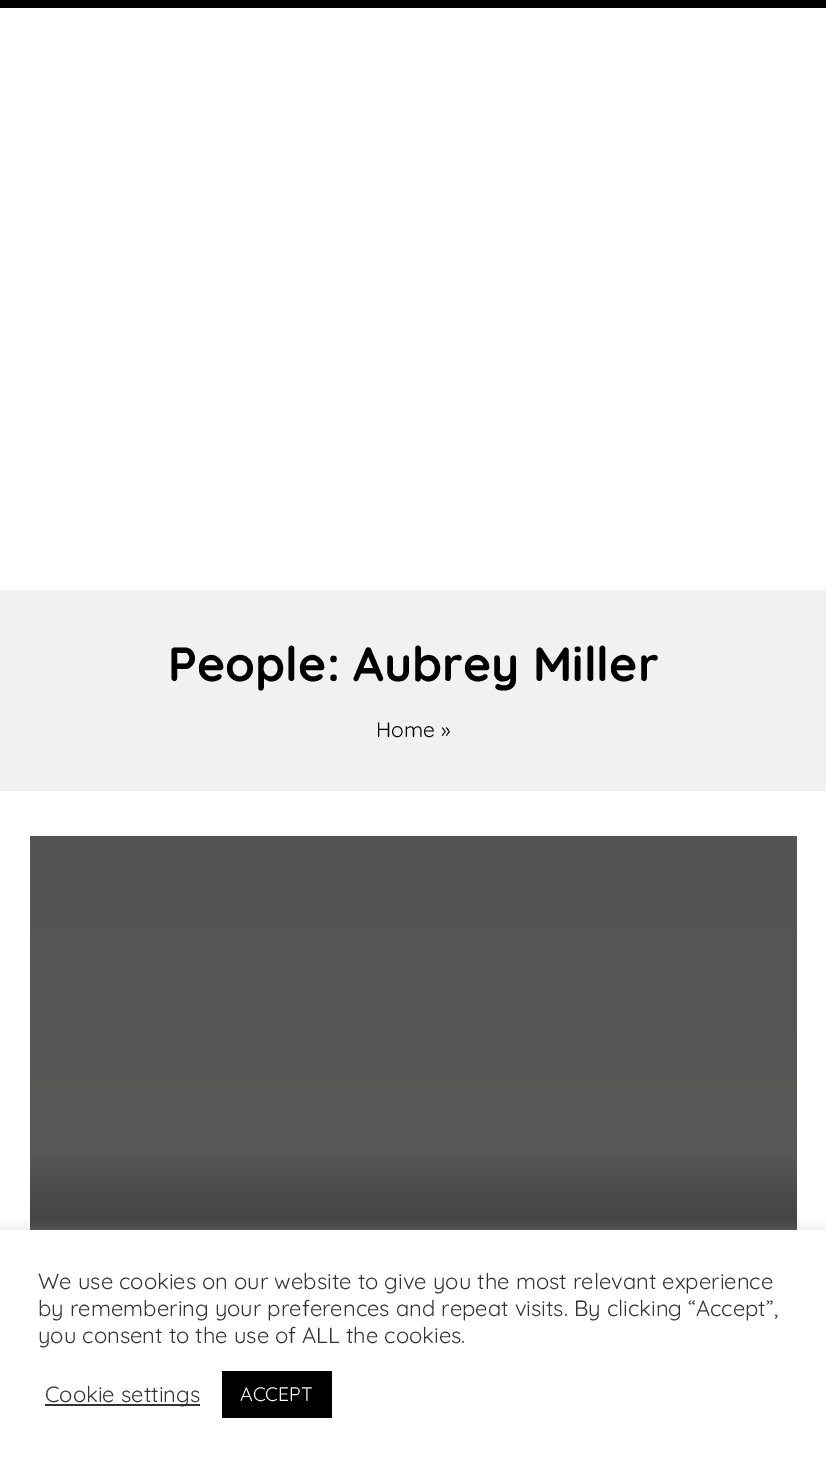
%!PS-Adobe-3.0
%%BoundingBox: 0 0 826 1462
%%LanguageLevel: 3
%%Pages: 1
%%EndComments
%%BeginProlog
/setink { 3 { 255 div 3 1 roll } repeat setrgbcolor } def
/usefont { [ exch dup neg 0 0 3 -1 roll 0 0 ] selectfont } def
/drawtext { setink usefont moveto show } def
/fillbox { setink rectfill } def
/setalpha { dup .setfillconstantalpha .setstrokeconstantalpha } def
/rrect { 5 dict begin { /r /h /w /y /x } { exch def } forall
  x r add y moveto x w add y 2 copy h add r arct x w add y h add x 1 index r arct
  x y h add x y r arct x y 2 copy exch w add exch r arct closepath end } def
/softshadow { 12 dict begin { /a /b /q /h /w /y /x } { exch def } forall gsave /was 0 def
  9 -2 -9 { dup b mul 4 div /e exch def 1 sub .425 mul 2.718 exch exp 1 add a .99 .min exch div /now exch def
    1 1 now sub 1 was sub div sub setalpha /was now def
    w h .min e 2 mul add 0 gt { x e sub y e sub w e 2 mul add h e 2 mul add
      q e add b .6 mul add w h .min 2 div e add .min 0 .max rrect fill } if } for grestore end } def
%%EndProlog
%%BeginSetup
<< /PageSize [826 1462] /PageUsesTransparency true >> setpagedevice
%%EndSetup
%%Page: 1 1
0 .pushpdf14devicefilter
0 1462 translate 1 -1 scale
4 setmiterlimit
0 0 826 1462 255 255 255 fillbox
0 0 826 8 0 0 0 fillbox
0 590 826 201 241 241 241 fillbox
(People: Aubrey Miller) 168 681 /Quicksand-Bold 48 0 0 0 drawtext
(Home ») 376 737 /Quicksand-Regular 21 0 0 0 drawtext
gsave 30 836 moveto 797 836 lineto 797 1230 lineto 30 1230 lineto closepath clip newpath
<< /ShadingType 2 /ColorSpace /DeviceRGB /Coords [413 836 413 1361] /Extend [true true] /Function << /FunctionType 3 /Domain [0 1] /Functions [<< /FunctionType 2 /Domain [0 1] /C0 [0.329 0.329 0.329] /C1 [0.345 0.345 0.341] /N 1 >> << /FunctionType 2 /Domain [0 1] /C0 [0.345 0.345 0.341] /C1 [0.11 0.11 0.11] /N 1 >>] /Bounds [0.6] /Encode [0 1 0 1] >> >> shfill grestore
172 171 171 setink
0 1229 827 232 0 7.5 0.3 softshadow
0 1230 826 232 255 255 255 fillbox
(We use cookies on our website to give you the most relevant experience) 38 1289 /Quicksand-Regular 22 51 51 51 drawtext
(by remembering your preferences and repeat visits. By clicking “Accept”,) 38 1316 /Quicksand-Regular 22 51 51 51 drawtext
(you consent to the use of ALL the cookies.) 38 1343 /Quicksand-Regular 22 51 51 51 drawtext
45 1404 155 2 51 51 51 fillbox
(Cookie settings) 45 1402 /Quicksand-Regular 22 51 51 51 drawtext
222 1371 110 47 0 0 0 fillbox
(ACCEPT) 240 1401 /Quicksand-Regular 19.5 255 255 255 drawtext
.poppdf14devicefilter showpage
%%EOF
